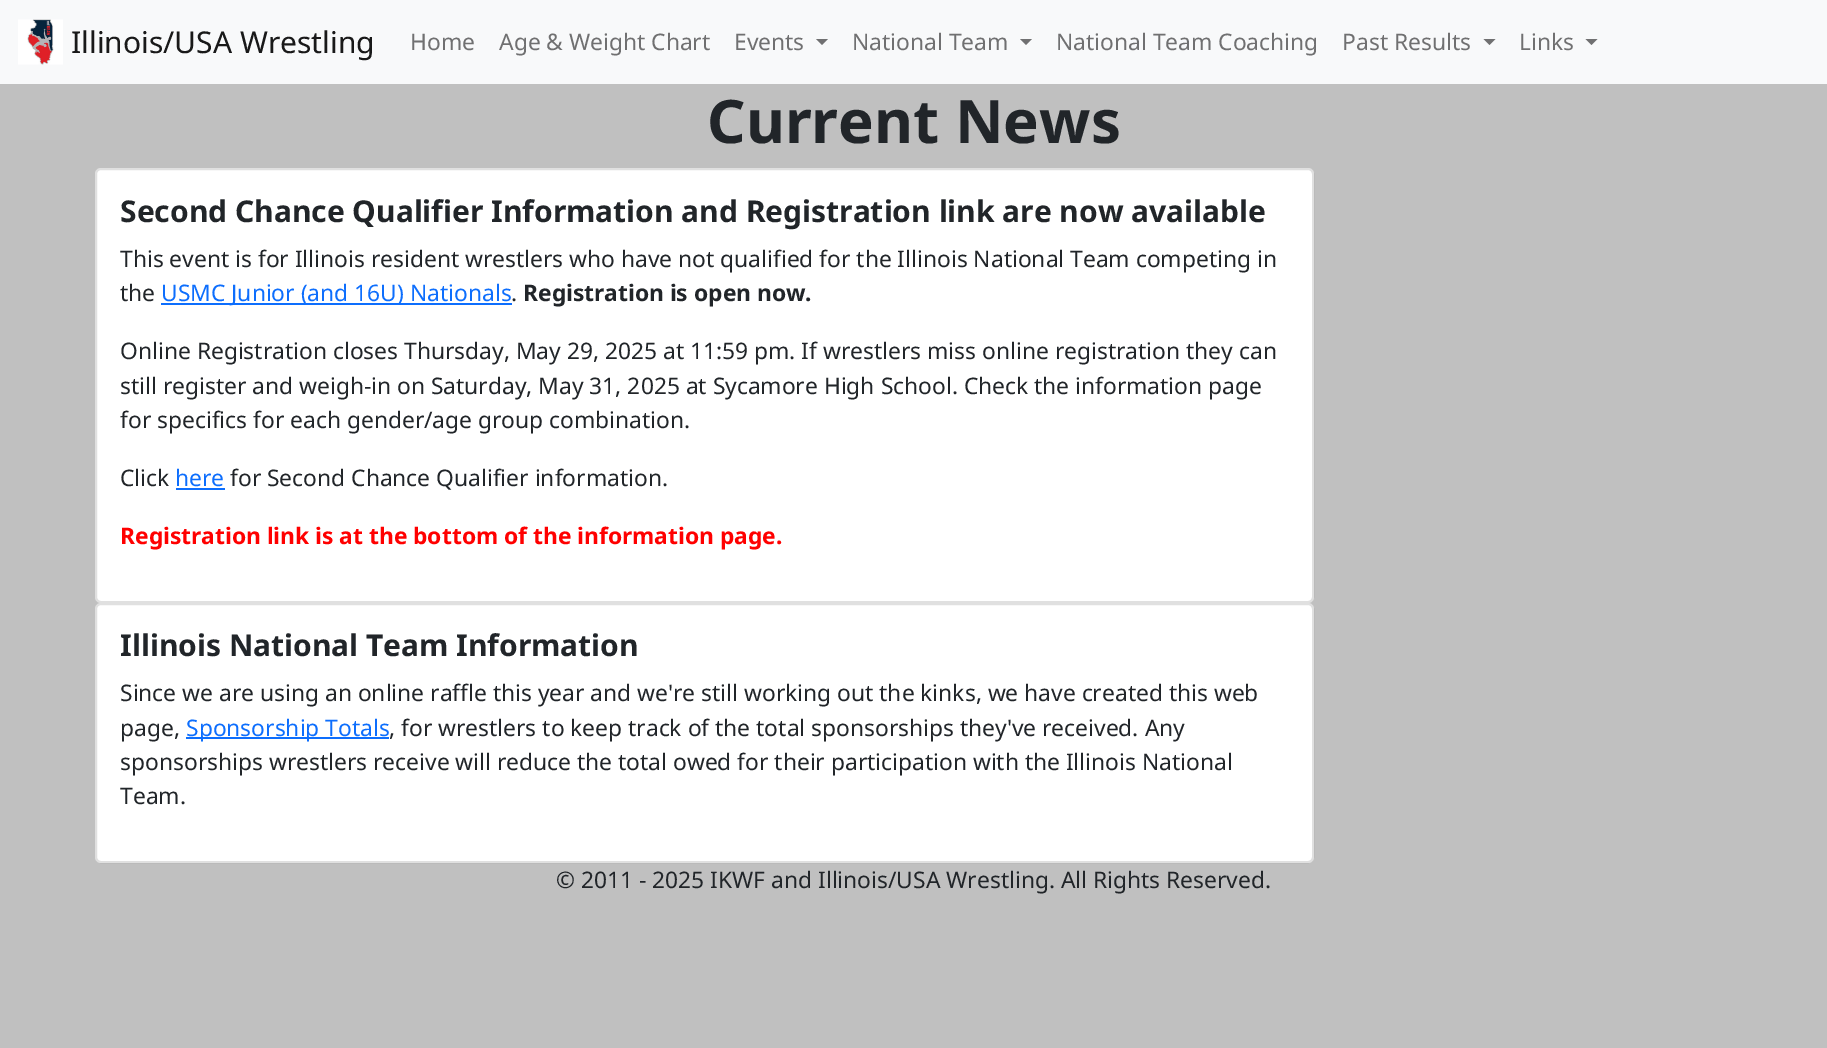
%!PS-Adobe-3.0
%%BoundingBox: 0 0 1827 1048
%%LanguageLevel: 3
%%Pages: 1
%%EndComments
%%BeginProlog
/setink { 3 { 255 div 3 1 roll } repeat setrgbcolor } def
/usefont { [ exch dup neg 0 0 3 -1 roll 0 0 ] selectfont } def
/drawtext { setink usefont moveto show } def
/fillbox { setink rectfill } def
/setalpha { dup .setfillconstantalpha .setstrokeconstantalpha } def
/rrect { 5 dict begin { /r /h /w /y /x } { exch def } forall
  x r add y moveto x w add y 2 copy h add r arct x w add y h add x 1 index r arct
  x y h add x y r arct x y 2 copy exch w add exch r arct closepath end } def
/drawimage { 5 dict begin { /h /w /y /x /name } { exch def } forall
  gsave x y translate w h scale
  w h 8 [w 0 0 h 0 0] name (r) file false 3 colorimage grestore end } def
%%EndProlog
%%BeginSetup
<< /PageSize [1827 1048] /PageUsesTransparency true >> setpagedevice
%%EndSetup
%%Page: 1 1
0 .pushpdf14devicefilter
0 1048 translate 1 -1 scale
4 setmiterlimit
0 0 1827 1048 192 192 192 fillbox
0 0 1827 84 248 249 250 fillbox
(assets/img1.rgb) 18 19 45 46 drawimage
(Illinois/USA Wrestling) 71 53 /NotoSans-Regular 30 25 25 25 drawtext
(Home) 410 50 /NotoSans-Regular 22.8 112 112 113 drawtext
(Age & Weight Chart) 499 50 /NotoSans-Regular 22.8 112 112 113 drawtext
(Events) 734 50 /NotoSans-Regular 22.8 112 112 113 drawtext
816 39 moveto 828 39 lineto 822 45 lineto closepath fill
(National Team) 852 50 /NotoSans-Regular 22.8 112 112 113 drawtext
1020 39 moveto 1032 39 lineto 1026 45 lineto closepath fill
(National Team Coaching) 1056 50 /NotoSans-Regular 22.8 112 112 113 drawtext
(Past Results) 1342 50 /NotoSans-Regular 22.8 112 112 113 drawtext
1483.5 39 moveto 1495.5 39 lineto 1489.5 45 lineto closepath fill
(Links) 1519 50 /NotoSans-Regular 22.8 112 112 113 drawtext
1585.5 39 moveto 1597.5 39 lineto 1591.5 45 lineto closepath fill
(Current News) 707 143 /NotoSans-Bold 60 33 37 41 drawtext
255 255 255 setink
95 168 1219 435 6 rrect fill
0.12 setalpha
0 0 0 setink
2 setlinewidth
96 169 1217 433 5 rrect stroke
1 setalpha
(Second Chance Qualifier Information and Registration link are now available) 120 222 /NotoSans-Bold 30 33 37 41 drawtext
(This event is for Illinois resident wrestlers who have not qualified for the Illinois National Team competing in) 120 267 /NotoSans-Regular 22.8 33 37 41 drawtext
(the) 120 301 /NotoSans-Regular 22.8 33 37 41 drawtext
161 303 351 2 13 110 253 fillbox
(USMC Junior \(and 16U\) Nationals) 161 301 /NotoSans-Regular 22.8 13 110 253 drawtext
(.) 511 301 /NotoSans-Regular 22.8 33 37 41 drawtext
(Registration is open now.) 523 301 /NotoSans-Bold 22.8 33 37 41 drawtext
(Online Registration closes Thursday, May 29, 2025 at 11:59 pm. If wrestlers miss online registration they can) 120 359 /NotoSans-Regular 22.8 33 37 41 drawtext
(still register and weigh-in on Saturday, May 31, 2025 at Sycamore High School. Check the information page) 120 394 /NotoSans-Regular 22.8 33 37 41 drawtext
(for specifics for each gender/age group combination.) 120 428 /NotoSans-Regular 22.8 33 37 41 drawtext
(Click) 120 486 /NotoSans-Regular 22.8 33 37 41 drawtext
(here) 175 486 /NotoSans-Regular 22.8 13 110 253 drawtext
176 488 49 2 13 110 253 fillbox
(for Second Chance Qualifier information.) 230 486 /NotoSans-Regular 22.8 33 37 41 drawtext
(Registration link is at the bottom of the information page.) 120 544 /NotoSans-Bold 22.8 255 0 0 drawtext
255 255 255 setink
95 603 1219 260 6 rrect fill
0.12 setalpha
0 0 0 setink
96 604 1217 258 5 rrect stroke
1 setalpha
(Illinois National Team Information) 120 656 /NotoSans-Bold 30 33 37 41 drawtext
(Since we are using an online raffle this year and we're still working out the kinks, we have created this web) 120 701 /NotoSans-Regular 22.8 33 37 41 drawtext
(page,) 120 736 /NotoSans-Regular 22.8 33 37 41 drawtext
186 737 203 2 13 110 253 fillbox
(Sponsorship Totals) 186 736 /NotoSans-Regular 22.8 13 110 253 drawtext
(, for wrestlers to keep track of the total sponsorships they've received. Any) 389 736 /NotoSans-Regular 22.8 33 37 41 drawtext
(sponsorships wrestlers receive will reduce the total owed for their participation with the Illinois National) 120 770 /NotoSans-Regular 22.8 33 37 41 drawtext
(Team.) 120 804 /NotoSans-Regular 22.8 33 37 41 drawtext
(© 2011 - 2025 IKWF and Illinois/USA Wrestling. All Rights Reserved.) 556 888 /NotoSans-Regular 22.8 33 37 41 drawtext
.poppdf14devicefilter showpage
%%EOF
